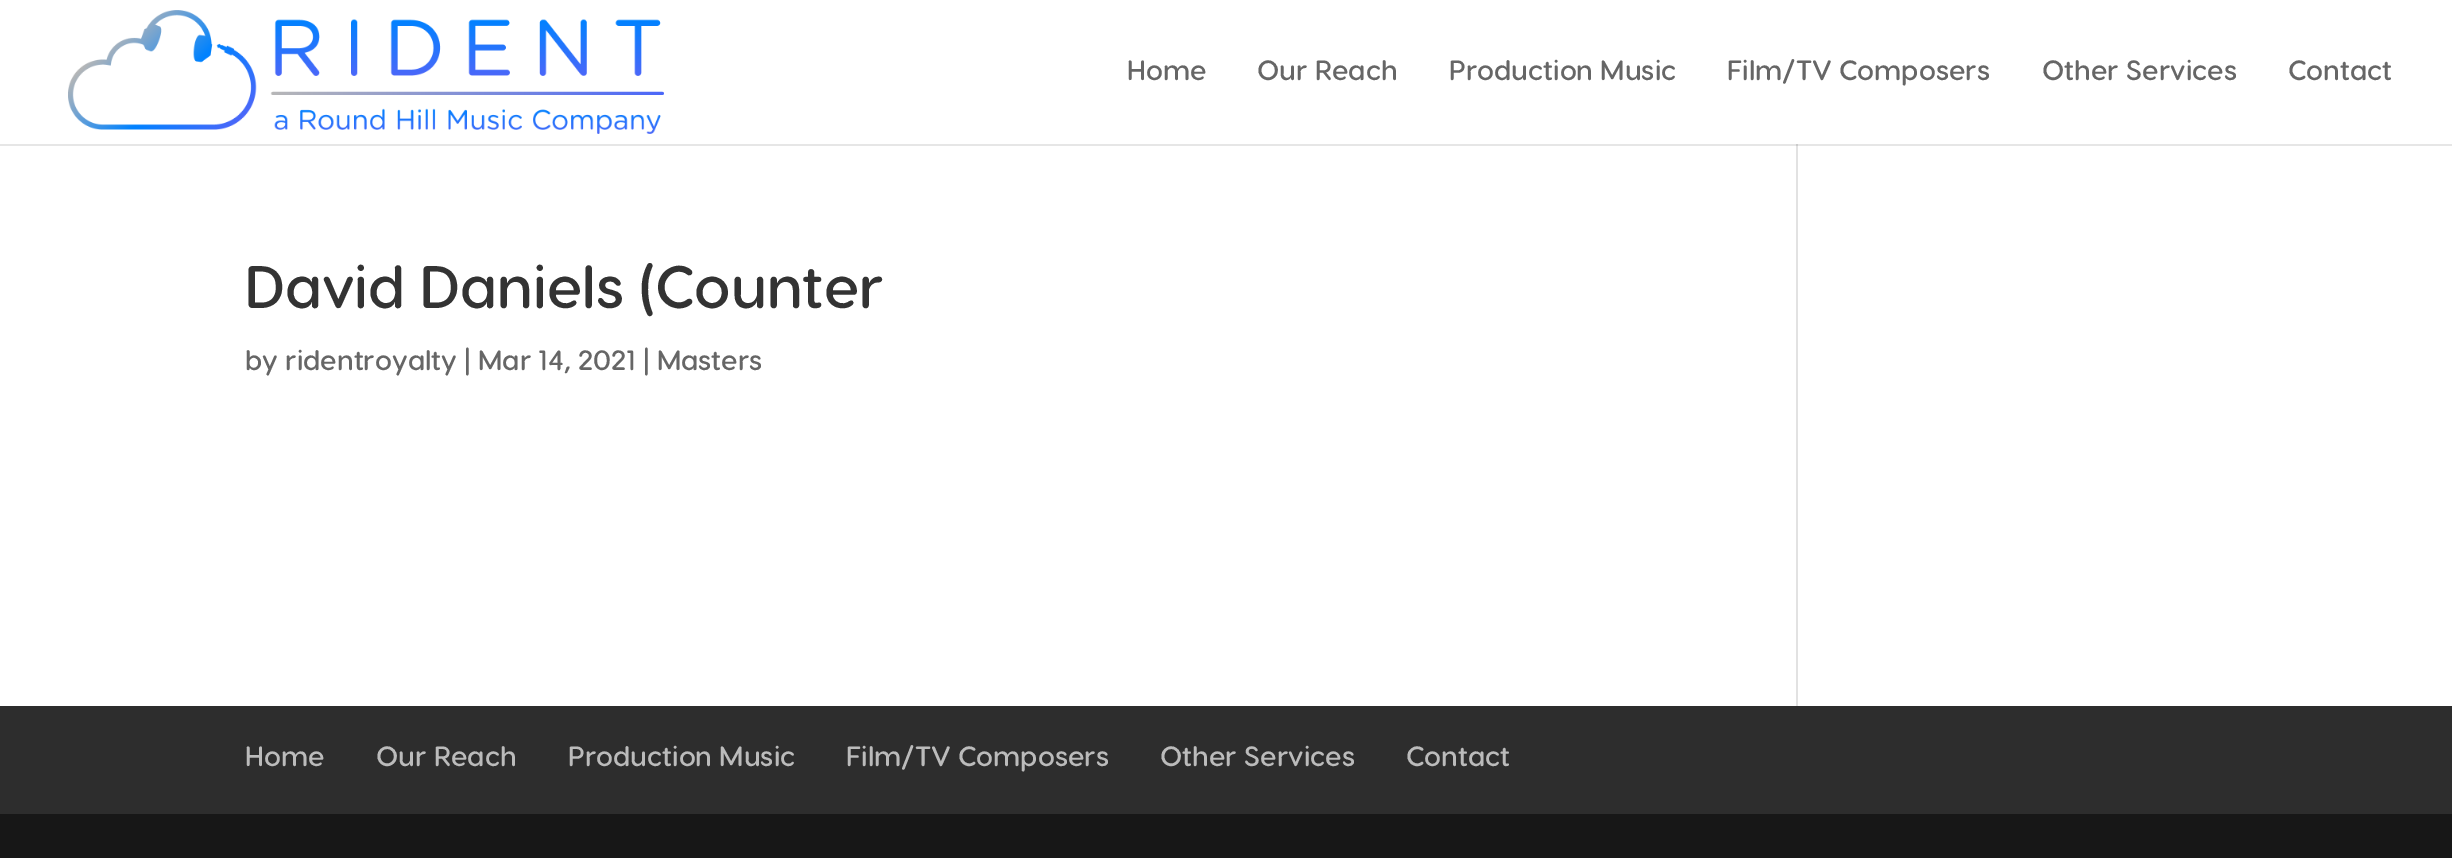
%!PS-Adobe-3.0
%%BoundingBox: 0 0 2452 858
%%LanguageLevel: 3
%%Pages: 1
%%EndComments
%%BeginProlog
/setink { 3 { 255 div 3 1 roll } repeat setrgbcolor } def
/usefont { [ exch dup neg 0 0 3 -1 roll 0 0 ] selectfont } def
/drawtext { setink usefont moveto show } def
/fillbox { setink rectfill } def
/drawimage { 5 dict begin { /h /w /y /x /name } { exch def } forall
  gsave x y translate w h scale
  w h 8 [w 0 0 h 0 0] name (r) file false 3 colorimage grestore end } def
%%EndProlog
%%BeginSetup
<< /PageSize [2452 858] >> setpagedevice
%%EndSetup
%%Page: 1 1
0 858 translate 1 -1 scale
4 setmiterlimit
0 0 2452 858 255 255 255 fillbox
0 144 2452 2 230 230 230 fillbox
(assets/img1.rgb) 68 10 596 124 drawimage
(Home) 1127 80 /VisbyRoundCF-SemiBold 28 102 102 102 drawtext
(Our Reach) 1257 80 /VisbyRoundCF-SemiBold 28 102 102 102 drawtext
(Production Music) 1449 80 /VisbyRoundCF-SemiBold 28 102 102 102 drawtext
(Film/TV Composers) 1727 80 /VisbyRoundCF-SemiBold 28 102 102 102 drawtext
(Other Services) 2042 80 /VisbyRoundCF-SemiBold 28 102 102 102 drawtext
(Contact) 2288 80 /VisbyRoundCF-SemiBold 28 102 102 102 drawtext
(David Daniels \(Counter) 245 308 /VisbyRoundCF-SemiBold 60 51 51 51 drawtext
(by ridentroyalty | Mar 14, 2021 | Masters) 245 370 /VisbyRoundCF-SemiBold 28 102 102 102 drawtext
1796 144 2 562 226 226 226 fillbox
1796 144 2 2 203 203 203 fillbox
0 706 2452 108 45 45 45 fillbox
(Home) 245 766 /VisbyRoundCF-SemiBold 28 187 187 187 drawtext
(Our Reach) 376 766 /VisbyRoundCF-SemiBold 28 187 187 187 drawtext
(Production Music) 568 766 /VisbyRoundCF-SemiBold 28 187 187 187 drawtext
(Film/TV Composers) 846 766 /VisbyRoundCF-SemiBold 28 187 187 187 drawtext
(Other Services) 1160 766 /VisbyRoundCF-SemiBold 28 187 187 187 drawtext
(Contact) 1406 766 /VisbyRoundCF-SemiBold 28 187 187 187 drawtext
0 814 2452 44 23 23 23 fillbox
showpage
%%EOF
